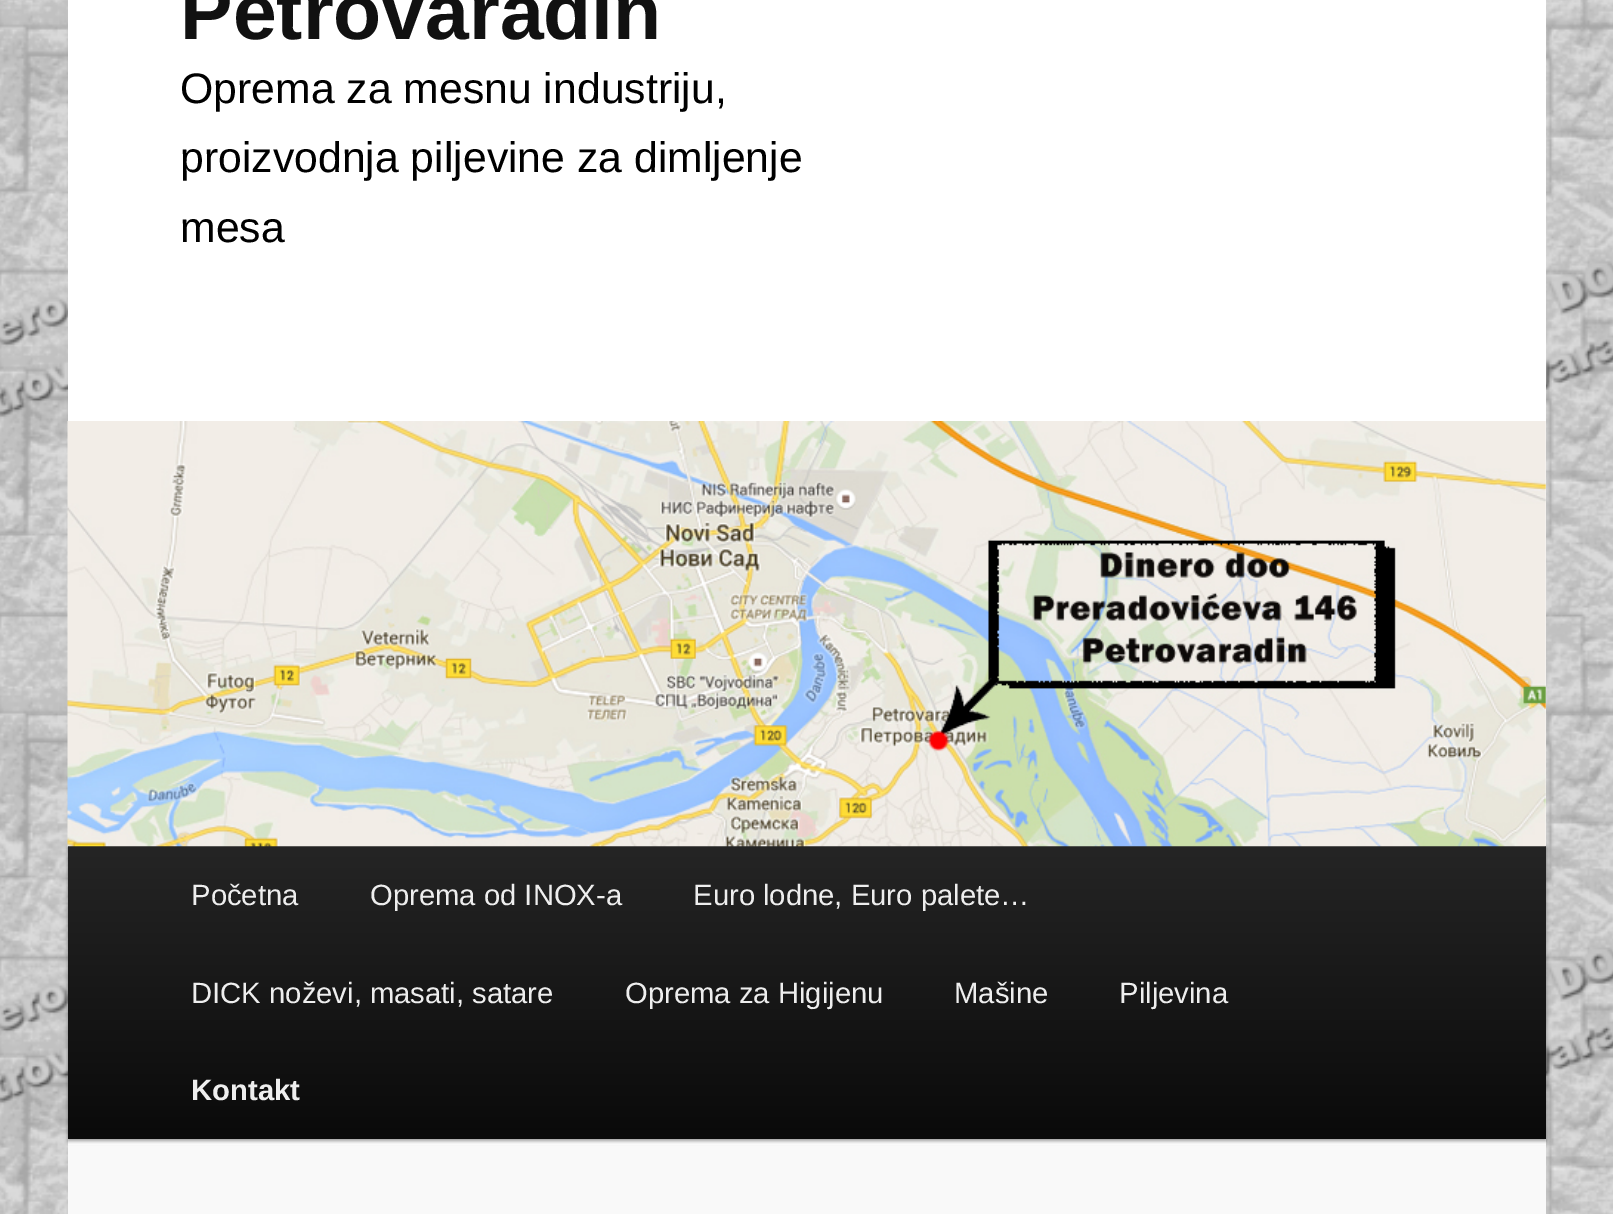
%!PS-Adobe-3.0
%%BoundingBox: 0 0 1613 1214
%%LanguageLevel: 3
%%Pages: 1
%%EndComments
%%BeginProlog
/setink { 3 { 255 div 3 1 roll } repeat setrgbcolor } def
/usefont { [ exch dup neg 0 0 3 -1 roll 0 0 ] selectfont } def
/drawtext { setink usefont moveto show } def
/fillbox { setink rectfill } def
/setalpha { dup .setfillconstantalpha .setstrokeconstantalpha } def
/rrect { 5 dict begin { /r /h /w /y /x } { exch def } forall
  x r add y moveto x w add y 2 copy h add r arct x w add y h add x 1 index r arct
  x y h add x y r arct x y 2 copy exch w add exch r arct closepath end } def
/softshadow { 12 dict begin { /a /b /q /h /w /y /x } { exch def } forall gsave /was 0 def
  9 -2 -9 { dup b mul 4 div /e exch def 1 sub .425 mul 2.718 exch exp 1 add a .99 .min exch div /now exch def
    1 1 now sub 1 was sub div sub setalpha /was now def
    w h .min e 2 mul add 0 gt { x e sub y e sub w e 2 mul add h e 2 mul add
      q e add b .6 mul add w h .min 2 div e add .min 0 .max rrect fill } if } for grestore end } def
/drawimage { 5 dict begin { /h /w /y /x /name } { exch def } forall
  gsave x y translate w h scale
  w h 8 [w 0 0 h 0 0] name (r) file false 3 colorimage grestore end } def
%%EndProlog
%%BeginSetup
<< /PageSize [1613 1214] /PageUsesTransparency true >> setpagedevice
%%EndSetup
%%Page: 1 1
0 .pushpdf14devicefilter
0 1214 translate 1 -1 scale
4 setmiterlimit
0 0 1613 1214 255 255 255 fillbox
(assets/img1.rgb) 0 0 1613 1214 drawimage
68 0 1478 1145 255 255 255 fillbox
(Petrovaradin) 180 39 /LiberationSans-Bold 78.75 17 17 17 drawtext
(Oprema za mesnu industriju,) 180 103 /LiberationSans-Regular 42.75 0 0 0 drawtext
(proizvodnja piljevine za dimljenje) 180 172 /LiberationSans-Regular 42.75 0 0 0 drawtext
(mesa) 180 242 /LiberationSans-Regular 42.75 0 0 0 drawtext
68 1145 1478 69 249 249 249 fillbox
0 0 0 setink
68 848 1478 293 0 2 0.4 softshadow
gsave 68 846 moveto 1546 846 lineto 1546 1139 lineto 68 1139 lineto closepath clip newpath
<< /ShadingType 2 /ColorSpace /DeviceRGB /Coords [807 846 807 1139] /Extend [true true] /Function << /FunctionType 2 /Domain [0 1] /C0 [0.145 0.145 0.145] /C1 [0.039 0.039 0.039] /N 1 >> >> shfill grestore
(assets/img2.rgb) 67 421 1479 426 drawimage
(Početna) 191 905 /LiberationSans-Regular 29.25 238 238 238 drawtext
(Oprema od INOX-a) 370 905 /LiberationSans-Regular 29.25 238 238 238 drawtext
(Euro lodne, Euro palete…) 693 905 /LiberationSans-Regular 29.25 238 238 238 drawtext
(DICK noževi, masati, satare) 191 1003 /LiberationSans-Regular 29.25 238 238 238 drawtext
(Oprema za Higijenu) 625 1003 /LiberationSans-Regular 29.25 238 238 238 drawtext
(Mašine) 954 1003 /LiberationSans-Regular 29.25 238 238 238 drawtext
(Piljevina) 1119 1003 /LiberationSans-Regular 29.25 238 238 238 drawtext
(Kontakt) 191 1100 /LiberationSans-Bold 29.25 238 238 238 drawtext
.poppdf14devicefilter showpage
%%EOF
